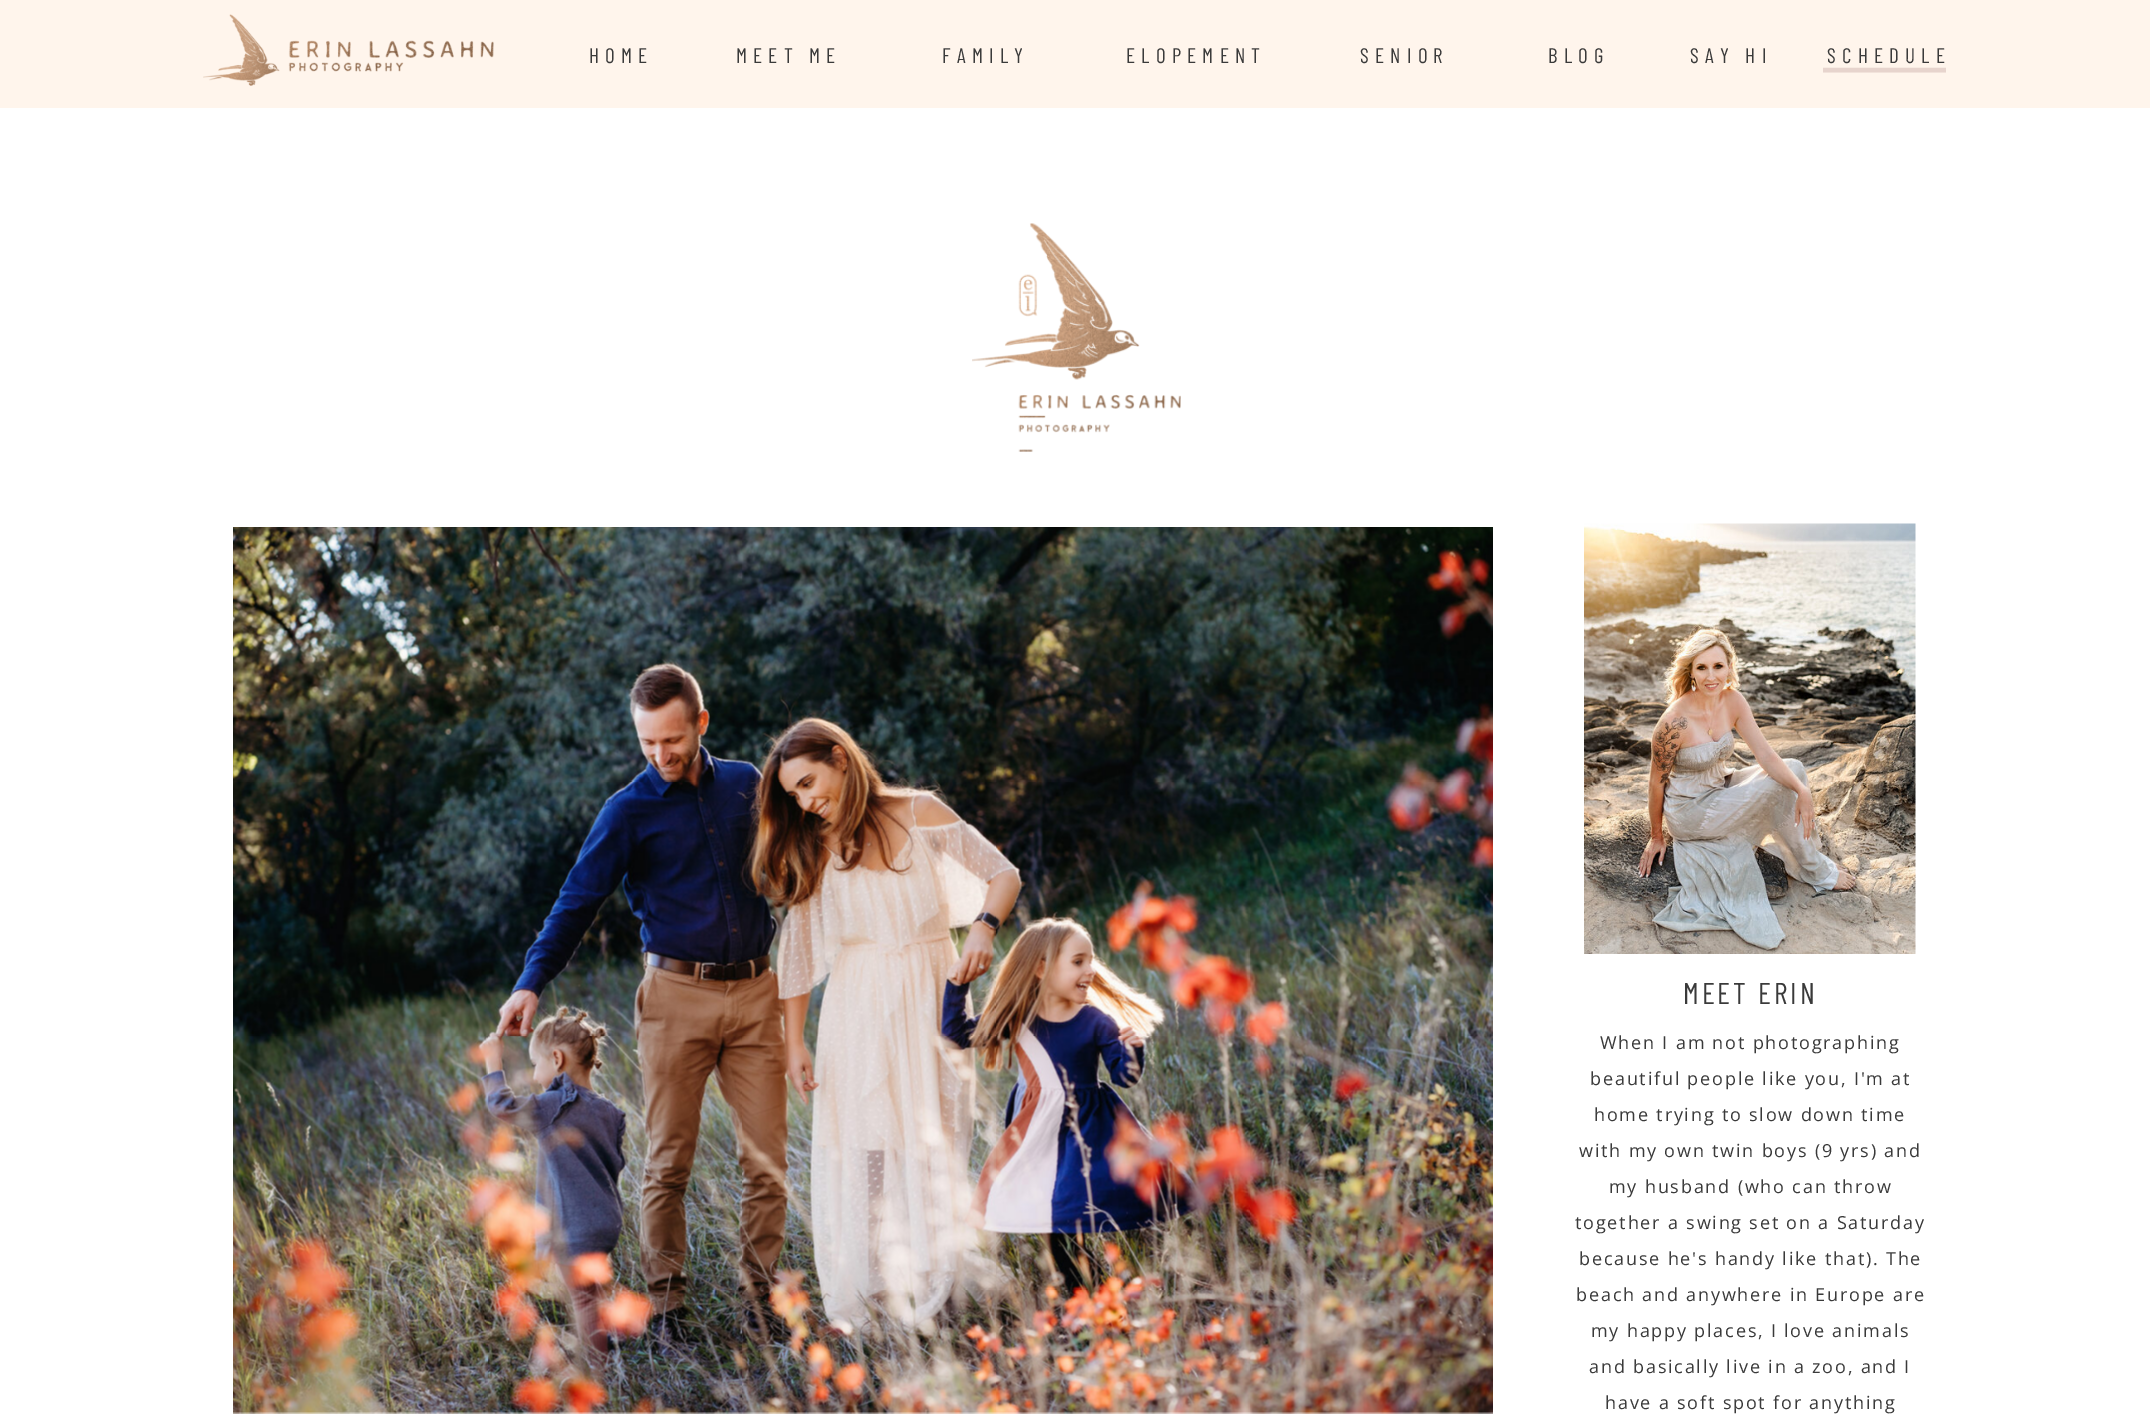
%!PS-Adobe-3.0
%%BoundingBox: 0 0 2150 1423
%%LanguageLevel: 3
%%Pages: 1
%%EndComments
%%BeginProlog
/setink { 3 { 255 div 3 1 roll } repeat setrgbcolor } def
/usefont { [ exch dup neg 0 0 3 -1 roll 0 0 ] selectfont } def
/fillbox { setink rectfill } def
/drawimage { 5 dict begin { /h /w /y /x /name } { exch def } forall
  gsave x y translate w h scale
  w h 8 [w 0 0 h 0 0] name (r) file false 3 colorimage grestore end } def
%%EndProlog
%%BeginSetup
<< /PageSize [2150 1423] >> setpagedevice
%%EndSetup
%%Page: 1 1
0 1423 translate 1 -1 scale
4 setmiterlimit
0 0 2150 1423 255 255 255 fillbox
0 0 2150 108 255 245 236 fillbox
(assets/img1.rgb) 203 14 291 72 drawimage
/BarlowCondensed-Regular 21 usefont
58 58 58 setink
589 63 moveto 6.25 0 (HOME) ashow
736 63 moveto 6.25 0 (MEET ME) ashow
942 63 moveto 6.25 0 (FAMILY) ashow
1126 63 moveto 6.25 0 (ELOPEMENT) ashow
1360 63 moveto 6.25 0 (SENIOR) ashow
1548 63 moveto 6.25 0 (BLOG) ashow
1690 63 moveto 6.25 0 (SAY HI) ashow
1827 63 moveto 6.25 0 (SCHEDULE) ashow
231 212 205 setink
4.5 setlinewidth
1823 70 moveto 1946 70 lineto stroke
(assets/img2.rgb) 972 223 209 229 drawimage
(assets/img3.rgb) 233 527 1260 887 drawimage
(assets/img4.rgb) 1584 523 332 431 drawimage
/BarlowCondensed-Regular 30 usefont
58 58 58 setink
1683 1004 moveto 3 0 (MEET ERIN) ashow
/OpenSans-Regular 18 usefont
1600 1049 moveto 1.8 0 (When I am not photographing) ashow
1590 1085 moveto 1.8 0 (beautiful people like you, I'm at) ashow
1594 1121 moveto 1.8 0 (home trying to slow down time) ashow
1579 1157 moveto 1.8 0 (with my own twin boys \(9 yrs\) and) ashow
1609 1193 moveto 1.8 0 (my husband \(who can throw) ashow
1575 1229 moveto 1.8 0 (together a swing set on a Saturday) ashow
1579 1265 moveto 1.8 0 (because he's handy like that\). The) ashow
1576 1301 moveto 1.8 0 (beach and anywhere in Europe are) ashow
1591 1337 moveto 1.8 0 (my happy places, I love animals) ashow
1589 1373 moveto 1.8 0 (and basically live in a zoo, and I) ashow
1605 1409 moveto 1.8 0 (have a soft spot for anything) ashow
showpage
%%EOF
